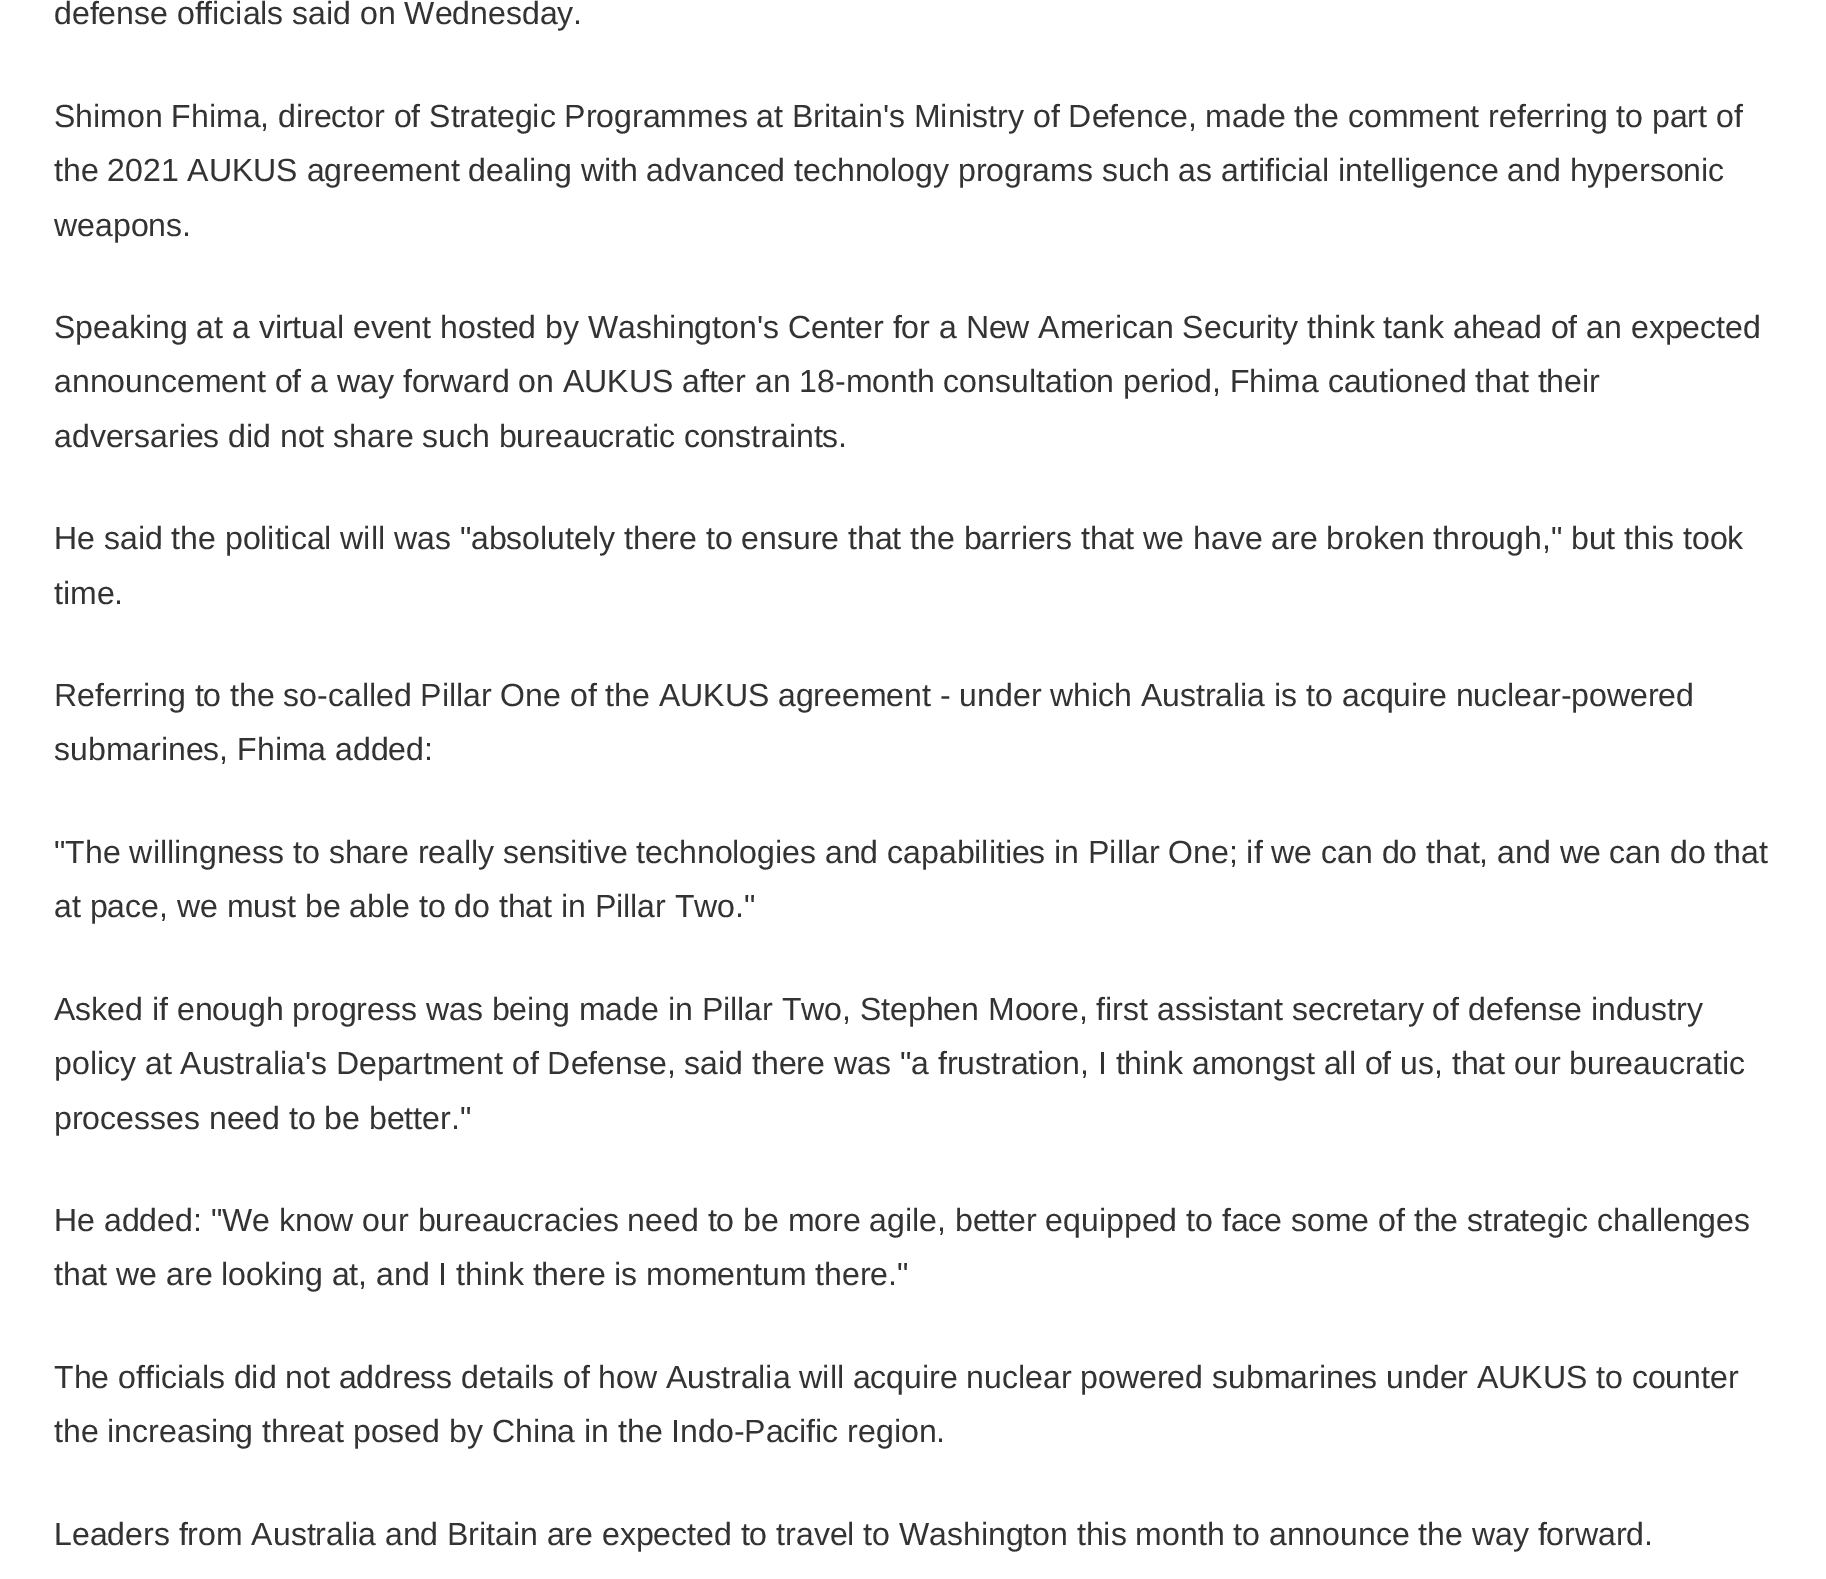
%!PS-Adobe-3.0
%%BoundingBox: 0 0 1826 1579
%%LanguageLevel: 3
%%Pages: 1
%%EndComments
%%BeginProlog
/setink { 3 { 255 div 3 1 roll } repeat setrgbcolor } def
/usefont { [ exch dup neg 0 0 3 -1 roll 0 0 ] selectfont } def
/drawtext { setink usefont moveto show } def
/fillbox { setink rectfill } def
%%EndProlog
%%BeginSetup
<< /PageSize [1826 1579] >> setpagedevice
%%EndSetup
%%Page: 1 1
0 1579 translate 1 -1 scale
4 setmiterlimit
0 0 1826 1579 255 255 255 fillbox
(defense officials said on Wednesday.) 54 24 /LiberationSans-Regular 32 51 51 51 drawtext
(Shimon Fhima, director of Strategic Programmes at Britain's Ministry of Defence, made the comment referring to part of) 54 127 /LiberationSans-Regular 32 51 51 51 drawtext
(the 2021 AUKUS agreement dealing with advanced technology programs such as artificial intelligence and hypersonic) 54 181 /LiberationSans-Regular 32 51 51 51 drawtext
(weapons.) 54 236 /LiberationSans-Regular 32 51 51 51 drawtext
(Speaking at a virtual event hosted by Washington's Center for a New American Security think tank ahead of an expected) 54 338 /LiberationSans-Regular 32 51 51 51 drawtext
(announcement of a way forward on AUKUS after an 18-month consultation period, Fhima cautioned that their) 54 392 /LiberationSans-Regular 32 51 51 51 drawtext
(adversaries did not share such bureaucratic constraints.) 54 447 /LiberationSans-Regular 32 51 51 51 drawtext
(He said the political will was "absolutely there to ensure that the barriers that we have are broken through," but this took) 54 549 /LiberationSans-Regular 32 51 51 51 drawtext
(time.) 54 604 /LiberationSans-Regular 32 51 51 51 drawtext
(Referring to the so-called Pillar One of the AUKUS agreement - under which Australia is to acquire nuclear-powered) 54 706 /LiberationSans-Regular 32 51 51 51 drawtext
(submarines, Fhima added:) 54 760 /LiberationSans-Regular 32 51 51 51 drawtext
("The willingness to share really sensitive technologies and capabilities in Pillar One; if we can do that, and we can do that) 54 863 /LiberationSans-Regular 32 51 51 51 drawtext
(at pace, we must be able to do that in Pillar Two.") 54 917 /LiberationSans-Regular 32 51 51 51 drawtext
(Asked if enough progress was being made in Pillar Two, Stephen Moore, first assistant secretary of defense industry) 54 1020 /LiberationSans-Regular 32 51 51 51 drawtext
(policy at Australia's Department of Defense, said there was "a frustration, I think amongst all of us, that our bureaucratic) 54 1074 /LiberationSans-Regular 32 51 51 51 drawtext
(processes need to be better.") 54 1129 /LiberationSans-Regular 32 51 51 51 drawtext
(He added: "We know our bureaucracies need to be more agile, better equipped to face some of the strategic challenges) 54 1231 /LiberationSans-Regular 32 51 51 51 drawtext
(that we are looking at, and I think there is momentum there.") 54 1285 /LiberationSans-Regular 32 51 51 51 drawtext
(The officials did not address details of how Australia will acquire nuclear powered submarines under AUKUS to counter) 54 1388 /LiberationSans-Regular 32 51 51 51 drawtext
(the increasing threat posed by China in the Indo-Pacific region.) 54 1442 /LiberationSans-Regular 32 51 51 51 drawtext
(Leaders from Australia and Britain are expected to travel to Washington this month to announce the way forward.) 54 1545 /LiberationSans-Regular 32 51 51 51 drawtext
showpage
%%EOF
